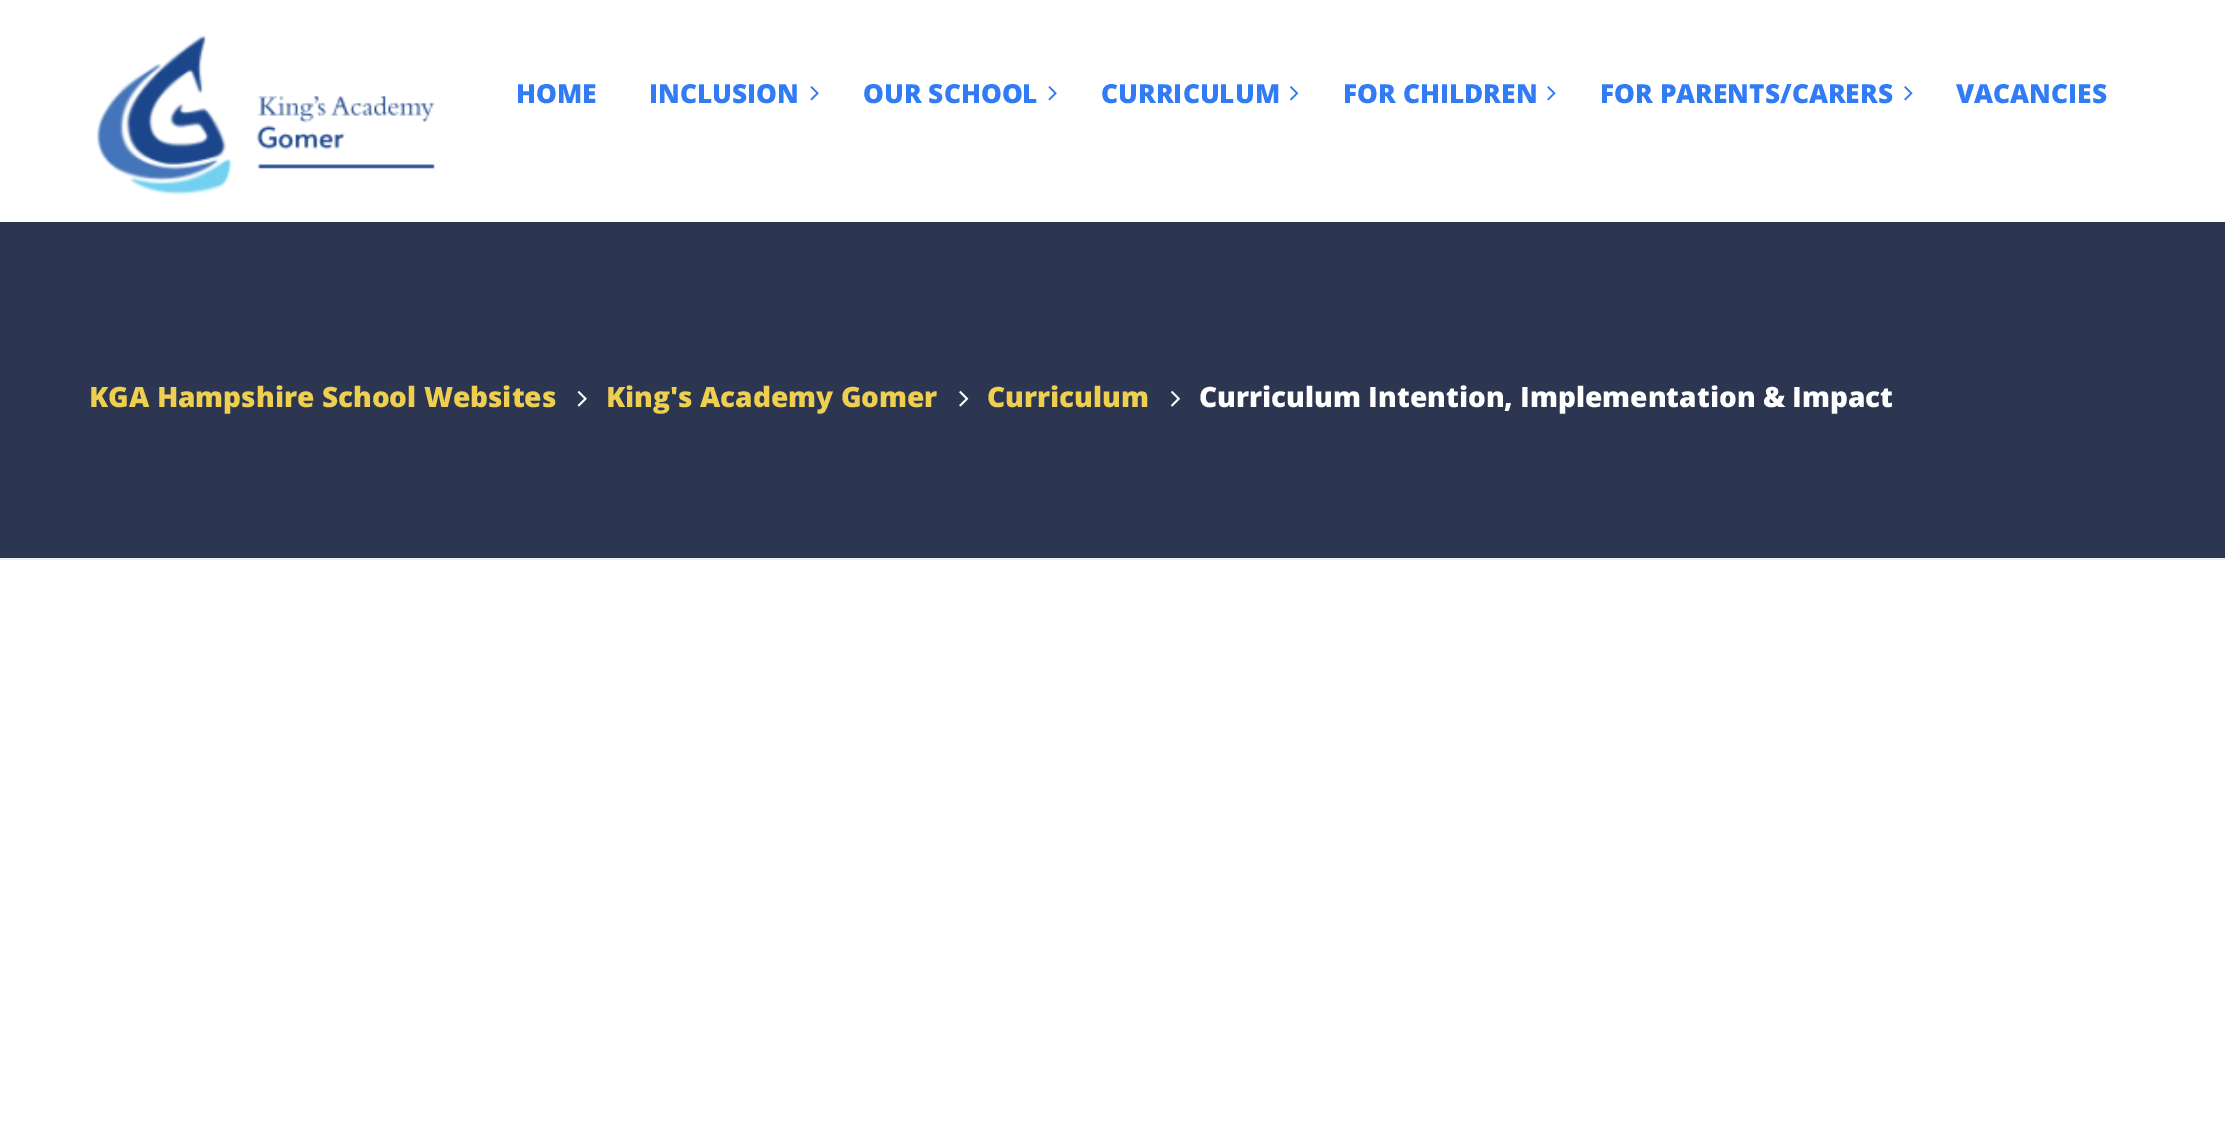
%!PS-Adobe-3.0
%%BoundingBox: 0 0 2225 1136
%%LanguageLevel: 3
%%Pages: 1
%%EndComments
%%BeginProlog
/setink { 3 { 255 div 3 1 roll } repeat setrgbcolor } def
/usefont { [ exch dup neg 0 0 3 -1 roll 0 0 ] selectfont } def
/drawtext { setink usefont moveto show } def
/fillbox { setink rectfill } def
/drawimage { 5 dict begin { /h /w /y /x /name } { exch def } forall
  gsave x y translate w h scale
  w h 8 [w 0 0 h 0 0] name (r) file false 3 colorimage grestore end } def
%%EndProlog
%%BeginSetup
<< /PageSize [2225 1136] >> setpagedevice
%%EndSetup
%%Page: 1 1
0 1136 translate 1 -1 scale
4 setmiterlimit
0 0 2225 1136 255 255 255 fillbox
(assets/img1.rgb) 96 35 339 160 drawimage
(HOME) 516 103 /OpenSans-ExtraBold 26.25 49 124 245 drawtext
(INCLUSION) 649 103 /OpenSans-ExtraBold 26.25 49 124 245 drawtext
(assets/img2.rgb) 810 86 9 15 drawimage
(OUR SCHOOL) 863 103 /OpenSans-ExtraBold 26.25 49 124 245 drawtext
(assets/img2.rgb) 1048 86 9 15 drawimage
(CURRICULUM) 1101 103 /OpenSans-ExtraBold 26.25 49 124 245 drawtext
(assets/img3.rgb) 1290 86 9 15 drawimage
(FOR CHILDREN) 1343 103 /OpenSans-ExtraBold 26.25 49 124 245 drawtext
(assets/img4.rgb) 1547 86 9 15 drawimage
(FOR PARENTS/CARERS) 1600 103 /OpenSans-ExtraBold 26.25 49 124 245 drawtext
(assets/img4.rgb) 1904 86 9 15 drawimage
(VACANCIES) 1956 103 /OpenSans-ExtraBold 26.25 49 124 245 drawtext
0 558 2225 2 238 238 238 fillbox
0 222 2225 336 45 54 80 fillbox
(KGA Hampshire School Websites) 89 407 /OpenSans-ExtraBold 28 239 207 79 drawtext
(assets/img5.rgb) 577 391 10 16 drawimage
(King's Academy Gomer) 606 407 /OpenSans-ExtraBold 28 239 207 79 drawtext
(assets/img6.rgb) 959 391 10 16 drawimage
(Curriculum) 987 407 /OpenSans-ExtraBold 28 239 207 79 drawtext
(assets/img7.rgb) 1171 391 9 16 drawimage
(Curriculum Intention, Implementation & Impact) 1199 407 /OpenSans-ExtraBold 28 255 255 255 drawtext
showpage
%%EOF
